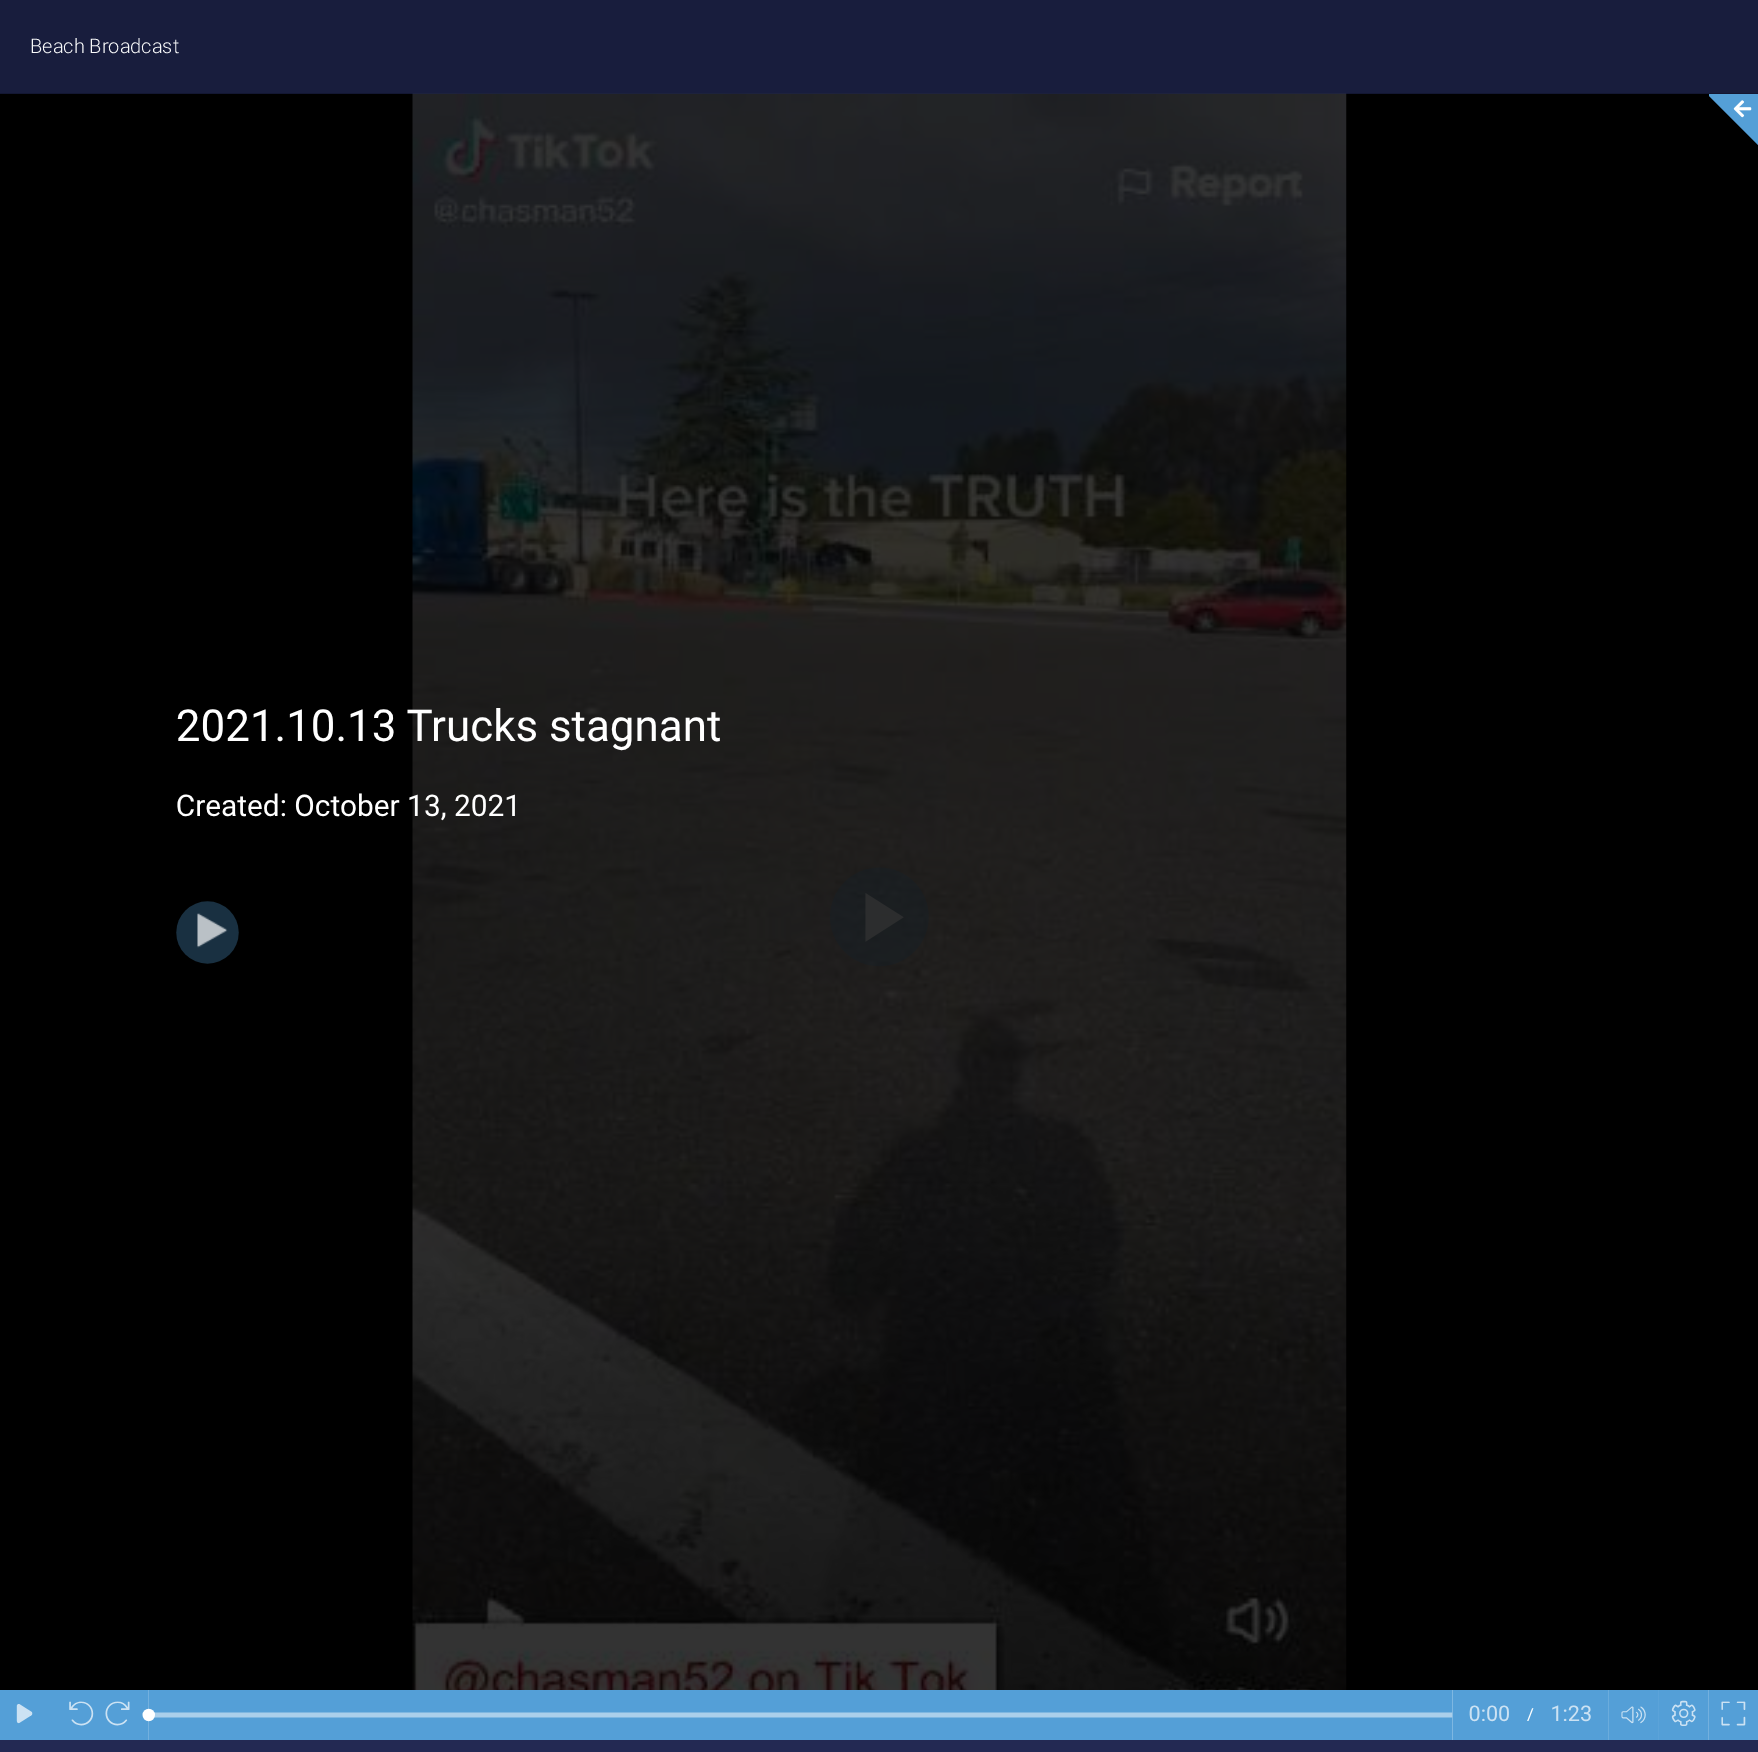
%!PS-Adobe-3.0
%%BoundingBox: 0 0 1758 1752
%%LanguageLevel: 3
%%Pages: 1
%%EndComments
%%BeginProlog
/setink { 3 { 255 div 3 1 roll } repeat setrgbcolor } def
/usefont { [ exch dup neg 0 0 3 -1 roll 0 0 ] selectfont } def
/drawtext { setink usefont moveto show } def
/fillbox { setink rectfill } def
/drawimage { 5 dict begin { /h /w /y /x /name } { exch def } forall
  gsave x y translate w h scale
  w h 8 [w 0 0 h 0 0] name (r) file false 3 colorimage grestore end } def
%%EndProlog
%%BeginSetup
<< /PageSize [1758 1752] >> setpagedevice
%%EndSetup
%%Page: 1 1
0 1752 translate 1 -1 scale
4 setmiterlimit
0 0 1758 1752 35 41 83 fillbox
0 0 1758 94 24 29 61 fillbox
(Beach Broadcast) 30 53 /Roboto-Light 20 248 249 250 drawtext
(assets/img1.rgb) 0 93 1758 1647 drawimage
84 159 215 setink
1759 94 moveto 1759 146 lineto 1709 96 lineto 1709 94 lineto closepath fill
(assets/img2.rgb) 1733 100 19 18 drawimage
showpage
%%EOF
